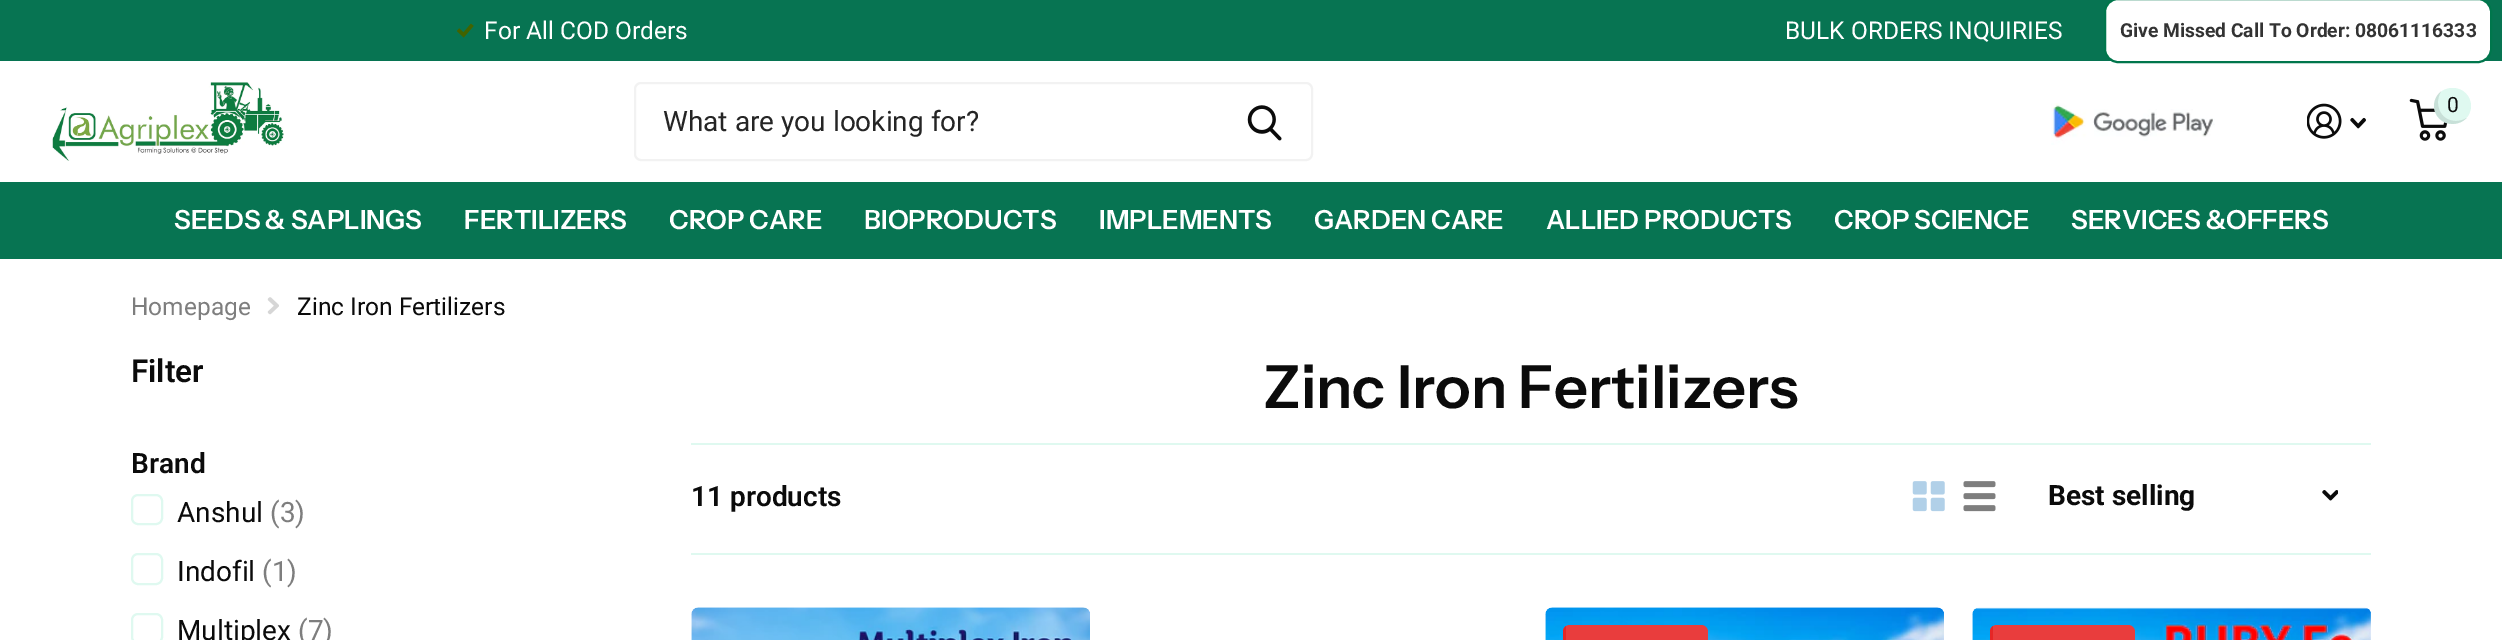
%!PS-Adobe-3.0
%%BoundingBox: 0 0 2502 640
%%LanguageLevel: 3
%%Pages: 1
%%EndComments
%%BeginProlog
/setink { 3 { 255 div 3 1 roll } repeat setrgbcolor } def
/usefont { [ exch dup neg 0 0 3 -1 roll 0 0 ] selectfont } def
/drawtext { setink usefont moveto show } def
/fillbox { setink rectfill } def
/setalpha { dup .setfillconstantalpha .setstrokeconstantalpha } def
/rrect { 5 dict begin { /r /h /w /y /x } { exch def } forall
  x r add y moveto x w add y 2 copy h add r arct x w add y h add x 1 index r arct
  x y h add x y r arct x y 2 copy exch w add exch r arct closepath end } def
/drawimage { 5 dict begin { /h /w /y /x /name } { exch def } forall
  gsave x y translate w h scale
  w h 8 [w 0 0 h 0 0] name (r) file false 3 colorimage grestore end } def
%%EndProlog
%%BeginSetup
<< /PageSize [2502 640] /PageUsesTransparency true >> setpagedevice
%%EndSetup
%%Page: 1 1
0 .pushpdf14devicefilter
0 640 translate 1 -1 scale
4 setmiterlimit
0 0 2502 640 255 255 255 fillbox
0 0 2502 61 7 116 82 fillbox
(assets/img1.rgb) 457 23 17 15 drawimage
(For All COD Orders) 484 39 /Roboto-Regular 24.5 255 255 255 drawtext
(BULK ORDERS INQUIRIES) 1785 39 /Roboto-Regular 24.5 255 255 255 drawtext
2105 -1 386 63 13 rrect gsave fill grestore
0 118 76 setink
2 setlinewidth
stroke
(Give Missed Call To Order: 08061116333) 2120 37 /Roboto-Bold 19.25 51 51 51 drawtext
(assets/img2.rgb) 2051 103 164 42 drawimage
(assets/img3.rgb) 2307 103 35 36 drawimage
(assets/img4.rgb) 2350 117 16 12 drawimage
(assets/img5.rgb) 2409 98 39 43 drawimage
223 249 240 setink
2434 88 37 36 18 rrect fill
0.1 setalpha
0 0 0 setink
2466.5 118 moveto 2463.5 120 2460 121 2456 121 curveto 2439 121 2434 102.5 2441 91.5 curveto 2432.5 98 2431.5 111 2439.5 118.5 curveto 2446.5 126 2459.5 125.5 2466.5 118 curveto closepath fill
1 setalpha
(0) 2447 112 /Roboto-Regular 21 11 11 11 drawtext
(assets/img6.rgb) 52 82 232 79 drawimage
242 242 242 setink
635 83 677 77 6 rrect stroke
(What are you looking for?) 663 131 /Roboto-Regular 28 37 37 37 drawtext
(assets/img7.rgb) 1247 105 35 36 drawimage
0 182 2502 77 7 116 82 fillbox
(SEEDS & SAPLINGS) 174 229 /InstrumentSans-SemiBold 26.25 255 255 255 drawtext
(FERTILIZERS) 464 229 /InstrumentSans-SemiBold 26.25 255 255 255 drawtext
(CROP CARE) 669 229 /InstrumentSans-SemiBold 26.25 255 255 255 drawtext
(BIOPRODUCTS) 864 229 /InstrumentSans-SemiBold 26.25 255 255 255 drawtext
(IMPLEMENTS) 1099 229 /InstrumentSans-SemiBold 26.25 255 255 255 drawtext
(GARDEN CARE) 1314 229 /InstrumentSans-SemiBold 26.25 255 255 255 drawtext
(ALLIED PRODUCTS) 1546 229 /InstrumentSans-SemiBold 26.25 255 255 255 drawtext
(CROP SCIENCE) 1834 229 /InstrumentSans-SemiBold 26.25 255 255 255 drawtext
(SERVICES &OFFERS) 2071 229 /InstrumentSans-SemiBold 26.25 255 255 255 drawtext
(Homepage) 131 315 /Roboto-Regular 24.5 126 126 126 drawtext
(assets/img8.rgb) 267 297 12 18 drawimage
(Zinc Iron Fertilizers) 297 315 /Roboto-Regular 24.5 11 11 11 drawtext
(Filter) 131 382 /Roboto-SemiBold 31.5 11 11 11 drawtext
(Brand) 131 473 /Roboto-SemiBold 28 11 11 11 drawtext
223 249 240 setink
132 495 30 29 6 rrect stroke
(Anshul) 177 522 /Roboto-Regular 28 11 11 11 drawtext
(\(3\)) 270 522 /Roboto-Regular 28 126 126 126 drawtext
223 249 240 setink
132 554 30 30 6 rrect stroke
(Indofil) 177 581 /Roboto-Regular 28 11 11 11 drawtext
(\(1\)) 262 581 /Roboto-Regular 28 126 126 126 drawtext
223 249 240 setink
132 614 30 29 6 rrect stroke
(Multiplex) 177 640 /Roboto-Regular 28 11 11 11 drawtext
(\(7\)) 298 640 /Roboto-Regular 28 126 126 126 drawtext
(Zinc Iron Fertilizers) 1263 408 /InstrumentSans-SemiBold 59.5 11 11 11 drawtext
691 443 1680 2 223 249 240 fillbox
691 553 1680 2 223 249 240 fillbox
(11 products) 691 506 /Roboto-SemiBold 28 11 11 11 drawtext
(assets/img9.rgb) 1912 481 33 31 drawimage
(assets/img10.rgb) 1963 481 33 31 drawimage
(assets/img11.rgb) 2322 490 16 11 drawimage
(Best selling) 2048 505 /Roboto-Bold 28 11 11 11 drawtext
(assets/img12.rgb) 691 607 399 33 drawimage
(assets/img13.rgb) 1545 607 399 33 drawimage
233 61 61 setink
1563 625 145 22 7 rrect fill
230 38 38 setink
1566 626 moveto 1566 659 lineto 1568 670 1593 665 1595 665 curveto 1704 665 lineto 1708 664 lineto 1707 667 1704 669 1701 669 curveto 1570 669 lineto 1566 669 1563 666 1563 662 curveto 1563 632 lineto 1563 630 1564 627 1566 626 curveto closepath fill
(assets/img14.rgb) 1972 607 399 33 drawimage
233 61 61 setink
1990 625 145 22 7 rrect fill
230 38 38 setink
1993 626 moveto 1993 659 lineto 1995 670 2021 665 2022 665 curveto 2132 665 lineto 2135 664 lineto 2134 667 2131 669 2128 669 curveto 1997 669 lineto 1993 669 1990 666 1990 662 curveto 1990 632 lineto 1990 630 1991 627 1993 626 curveto closepath fill
.poppdf14devicefilter showpage
%%EOF
